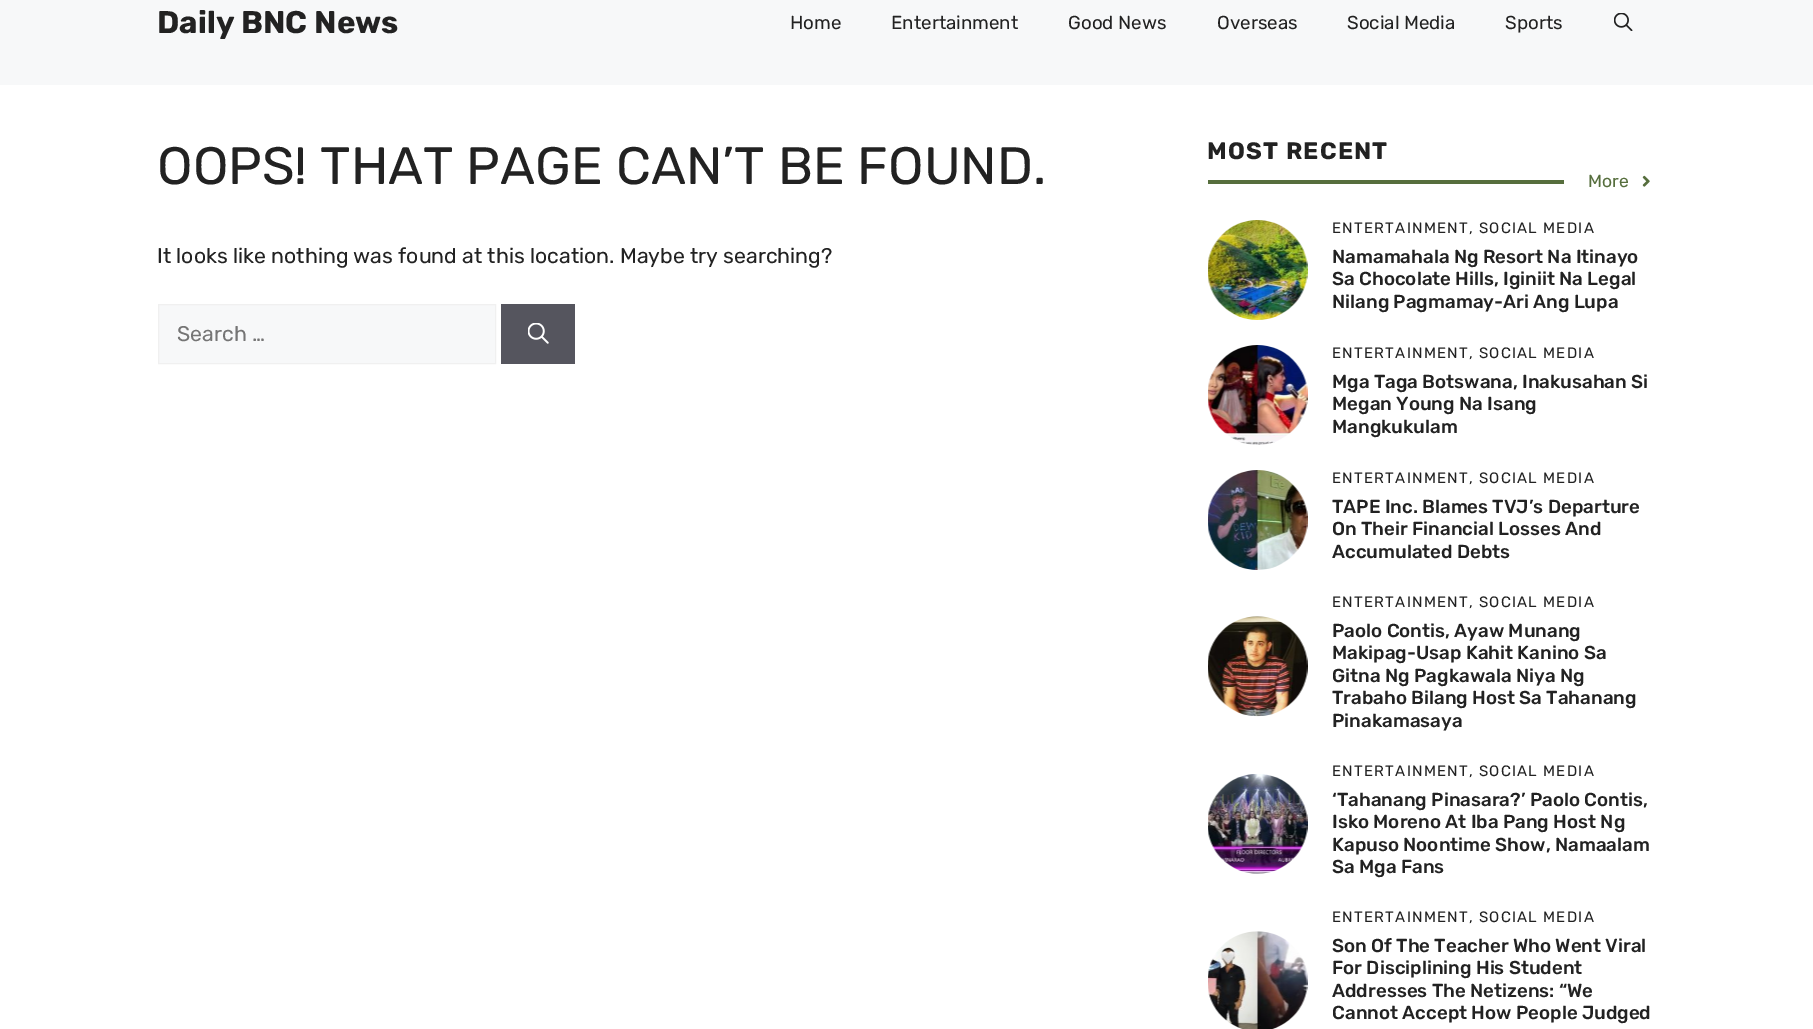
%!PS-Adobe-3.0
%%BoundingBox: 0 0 1813 1029
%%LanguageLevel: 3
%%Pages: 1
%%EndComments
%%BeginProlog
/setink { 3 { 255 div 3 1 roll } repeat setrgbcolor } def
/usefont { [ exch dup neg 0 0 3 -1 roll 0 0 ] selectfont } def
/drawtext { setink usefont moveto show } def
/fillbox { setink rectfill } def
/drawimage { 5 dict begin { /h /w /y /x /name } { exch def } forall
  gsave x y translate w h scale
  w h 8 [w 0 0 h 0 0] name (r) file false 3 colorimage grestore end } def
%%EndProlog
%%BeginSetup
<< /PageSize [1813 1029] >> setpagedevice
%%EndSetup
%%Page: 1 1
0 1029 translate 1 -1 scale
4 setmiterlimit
0 0 1813 1029 255 255 255 fillbox
0 0 1813 85 247 248 249 fillbox
(Daily BNC News) 157 33 /Rubik-Bold 31.25 34 34 34 drawtext
(Home) 790 29 /Rubik-Regular 18.75 34 34 34 drawtext
(Entertainment) 891 29 /Rubik-Regular 18.75 34 34 34 drawtext
(Good News) 1068 29 /Rubik-Regular 18.75 34 34 34 drawtext
(Overseas) 1217 29 /Rubik-Regular 18.75 34 34 34 drawtext
(Social Media) 1347 29 /Rubik-Regular 18.75 34 34 34 drawtext
(Sports) 1505 29 /Rubik-Regular 18.75 34 34 34 drawtext
(assets/img1.rgb) 1614 13 19 18 drawimage
(OOPS! THAT PAGE CAN’T BE FOUND.) 157 184 /Rubik-Regular 52.5 34 34 34 drawtext
(It looks like nothing was found at this location. Maybe try searching?) 157 263 /Rubik-Regular 21.25 34 34 34 drawtext
247 248 249 setink
158.5 304.5 moveto 495.5 304.5 lineto 495.5 363.5 lineto 158.5 363.5 lineto closepath gsave fill grestore
240 240 240 setink
stroke
(Search …) 177 341 /Rubik-Regular 21.25 117 117 117 drawtext
501 304 74 60 85 85 94 fillbox
(assets/img2.rgb) 528 323 21 21 drawimage
/Rubik-Bold 23.75 usefont
34 34 34 setink
1207 159 moveto 1.25 0 (MOST RECENT) ashow
1208 180 356 4 86 110 61 fillbox
(More) 1588 187 /Rubik-Regular 17.5 86 110 61 drawtext
(assets/img3.rgb) 1642 175 8 12 drawimage
(assets/img4.rgb) 1208 220 100 100 drawimage
/Rubik-Regular 15 usefont
34 34 34 setink
1332 233 moveto 1.25 0 (ENTERTAINMENT, SOCIAL MEDIA) ashow
(Namamahala Ng Resort Na Itinayo) 1332 263 /Rubik-Medium 18.75 34 34 34 drawtext
(Sa Chocolate Hills, Iginiit Na Legal) 1332 285 /Rubik-Medium 18.75 34 34 34 drawtext
(Nilang Pagmamay-Ari Ang Lupa) 1332 308 /Rubik-Medium 18.75 34 34 34 drawtext
(assets/img5.rgb) 1208 345 100 100 drawimage
/Rubik-Regular 15 usefont
1332 358 moveto 1.25 0 (ENTERTAINMENT, SOCIAL MEDIA) ashow
(Mga Taga Botswana, Inakusahan Si) 1332 388 /Rubik-Medium 18.75 34 34 34 drawtext
(Megan Young Na Isang) 1332 410 /Rubik-Medium 18.75 34 34 34 drawtext
(Mangkukulam) 1332 433 /Rubik-Medium 18.75 34 34 34 drawtext
(assets/img6.rgb) 1208 470 100 100 drawimage
/Rubik-Regular 15 usefont
1332 483 moveto 1.25 0 (ENTERTAINMENT, SOCIAL MEDIA) ashow
(TAPE Inc. Blames TVJ’s Departure) 1332 513 /Rubik-Medium 18.75 34 34 34 drawtext
(On Their Financial Losses And) 1332 535 /Rubik-Medium 18.75 34 34 34 drawtext
(Accumulated Debts) 1332 558 /Rubik-Medium 18.75 34 34 34 drawtext
(assets/img7.rgb) 1208 616 100 101 drawimage
/Rubik-Regular 15 usefont
1332 607 moveto 1.25 0 (ENTERTAINMENT, SOCIAL MEDIA) ashow
(Paolo Contis, Ayaw Munang) 1332 637 /Rubik-Medium 18.75 34 34 34 drawtext
(Makipag-Usap Kahit Kanino Sa) 1332 659 /Rubik-Medium 18.75 34 34 34 drawtext
(Gitna Ng Pagkawala Niya Ng) 1332 682 /Rubik-Medium 18.75 34 34 34 drawtext
(Trabaho Bilang Host Sa Tahanang) 1332 704 /Rubik-Medium 18.75 34 34 34 drawtext
(Pinakamasaya) 1332 727 /Rubik-Medium 18.75 34 34 34 drawtext
(assets/img8.rgb) 1208 774 100 100 drawimage
/Rubik-Regular 15 usefont
1332 776 moveto 1.25 0 (ENTERTAINMENT, SOCIAL MEDIA) ashow
(‘Tahanang Pinasara?’ Paolo Contis,) 1332 806 /Rubik-Medium 18.75 34 34 34 drawtext
(Isko Moreno At Iba Pang Host Ng) 1332 828 /Rubik-Medium 18.75 34 34 34 drawtext
(Kapuso Noontime Show, Namaalam) 1332 851 /Rubik-Medium 18.75 34 34 34 drawtext
(Sa Mga Fans) 1332 873 /Rubik-Medium 18.75 34 34 34 drawtext
(assets/img9.rgb) 1208 931 100 98 drawimage
/Rubik-Regular 15 usefont
1332 922 moveto 1.25 0 (ENTERTAINMENT, SOCIAL MEDIA) ashow
(Son Of The Teacher Who Went Viral) 1332 952 /Rubik-Medium 18.75 34 34 34 drawtext
(For Disciplining His Student) 1332 974 /Rubik-Medium 18.75 34 34 34 drawtext
(Addresses The Netizens: “We) 1332 997 /Rubik-Medium 18.75 34 34 34 drawtext
(Cannot Accept How People Judged) 1332 1019 /Rubik-Medium 18.75 34 34 34 drawtext
showpage
%%EOF
